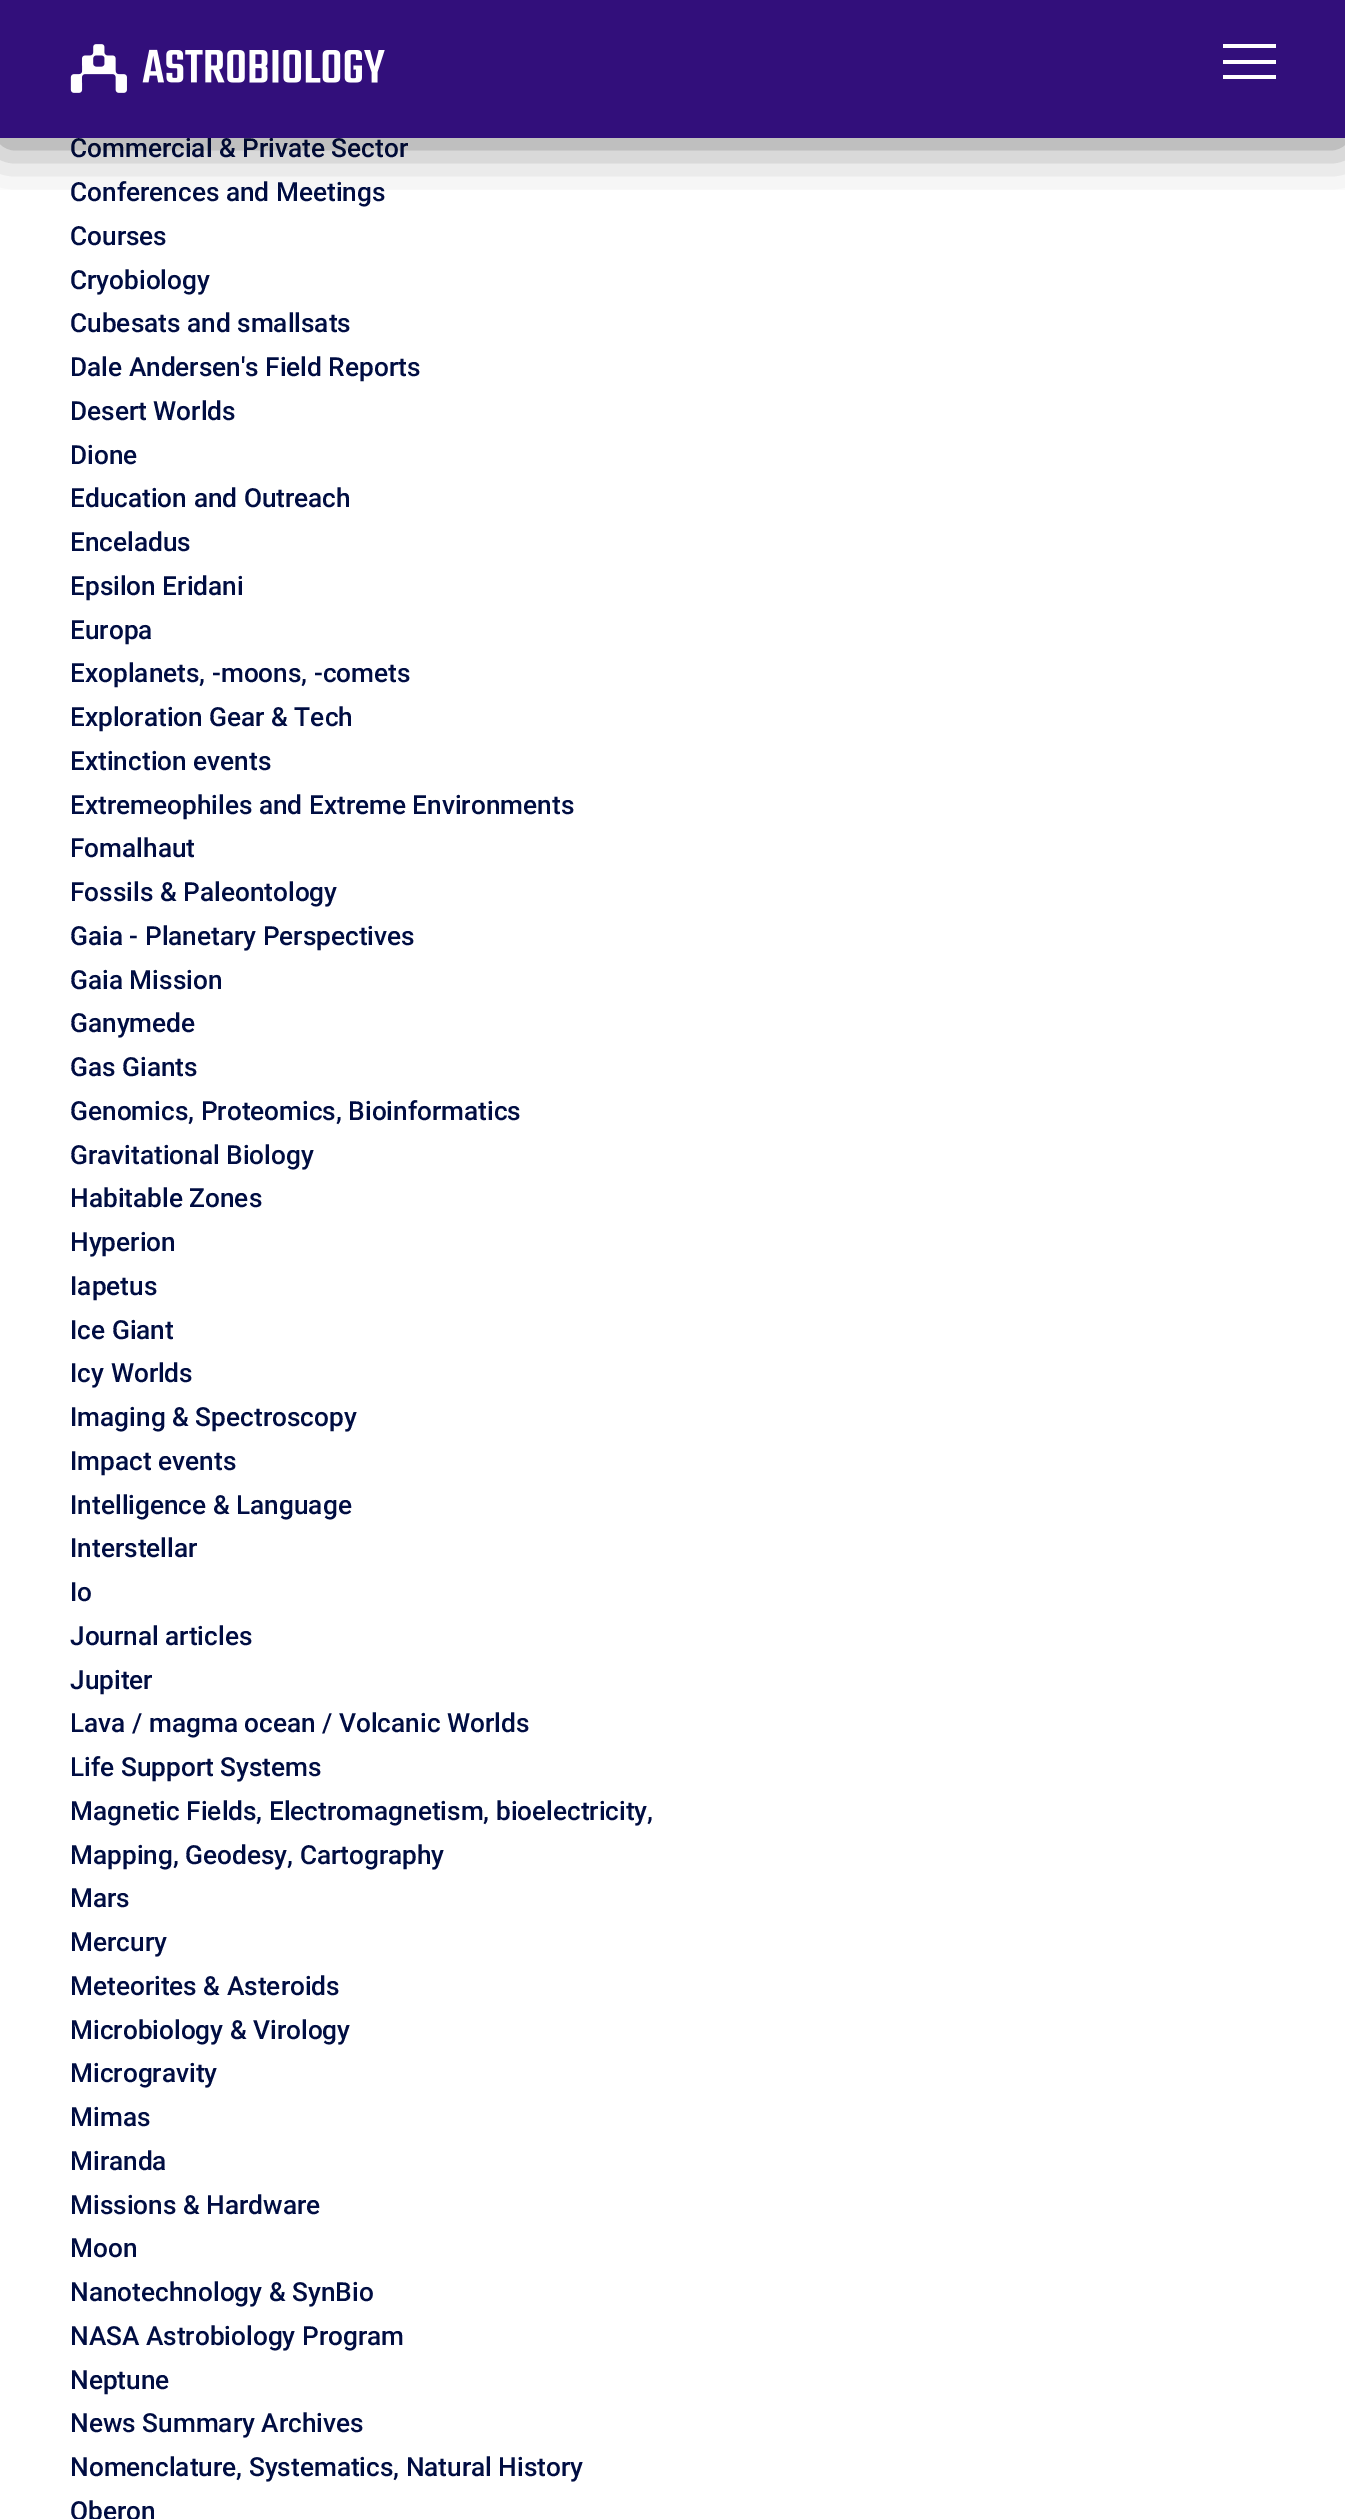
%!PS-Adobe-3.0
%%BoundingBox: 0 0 1345 2519
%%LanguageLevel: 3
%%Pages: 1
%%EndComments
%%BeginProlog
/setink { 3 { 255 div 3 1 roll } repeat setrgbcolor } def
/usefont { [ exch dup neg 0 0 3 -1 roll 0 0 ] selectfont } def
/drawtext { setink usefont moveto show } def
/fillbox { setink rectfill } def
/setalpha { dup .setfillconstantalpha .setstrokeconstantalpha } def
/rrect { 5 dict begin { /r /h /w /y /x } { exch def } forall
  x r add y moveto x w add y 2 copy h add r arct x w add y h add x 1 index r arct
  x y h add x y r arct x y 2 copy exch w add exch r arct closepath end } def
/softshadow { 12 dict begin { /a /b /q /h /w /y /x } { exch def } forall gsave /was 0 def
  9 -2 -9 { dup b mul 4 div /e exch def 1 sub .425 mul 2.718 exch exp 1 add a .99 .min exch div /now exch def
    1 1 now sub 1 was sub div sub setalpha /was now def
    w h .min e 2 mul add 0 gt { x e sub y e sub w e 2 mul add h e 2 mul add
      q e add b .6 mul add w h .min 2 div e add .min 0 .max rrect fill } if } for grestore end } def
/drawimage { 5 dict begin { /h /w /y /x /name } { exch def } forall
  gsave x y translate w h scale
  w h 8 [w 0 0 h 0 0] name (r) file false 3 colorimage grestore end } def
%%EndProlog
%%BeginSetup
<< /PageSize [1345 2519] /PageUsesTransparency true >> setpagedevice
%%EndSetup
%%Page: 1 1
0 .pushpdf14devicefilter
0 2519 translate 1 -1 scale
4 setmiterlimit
0 0 1345 2519 255 255 255 fillbox
(Commercial & Private Sector) 70 157 /Roboto-Medium 26.25 0 13 66 drawtext
0 0 1345 138 50 15 123 fillbox
gsave
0 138 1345 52 rectclip
0 0 0 setink
0 5 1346 139 0 26 0.51 softshadow
grestore
(assets/img1.rgb) 70 44 315 49 drawimage
1223 60 53 4 255 255 255 fillbox
1223 44 53 4 255 255 255 fillbox
1223 75 53 4 255 255 255 fillbox
(Conferences and Meetings) 70 201 /Roboto-Medium 26.25 0 13 66 drawtext
(Courses) 70 245 /Roboto-Medium 26.25 0 13 66 drawtext
(Cryobiology) 70 289 /Roboto-Medium 26.25 0 13 66 drawtext
(Cubesats and smallsats) 70 332 /Roboto-Medium 26.25 0 13 66 drawtext
(Dale Andersen's Field Reports) 70 376 /Roboto-Medium 26.25 0 13 66 drawtext
(Desert Worlds) 70 420 /Roboto-Medium 26.25 0 13 66 drawtext
(Dione) 70 464 /Roboto-Medium 26.25 0 13 66 drawtext
(Education and Outreach) 70 507 /Roboto-Medium 26.25 0 13 66 drawtext
(Enceladus) 70 551 /Roboto-Medium 26.25 0 13 66 drawtext
(Epsilon Eridani) 70 595 /Roboto-Medium 26.25 0 13 66 drawtext
(Europa) 70 639 /Roboto-Medium 26.25 0 13 66 drawtext
(Exoplanets, -moons, -comets) 70 682 /Roboto-Medium 26.25 0 13 66 drawtext
(Exploration Gear & Tech) 70 726 /Roboto-Medium 26.25 0 13 66 drawtext
(Extinction events) 70 770 /Roboto-Medium 26.25 0 13 66 drawtext
(Extremeophiles and Extreme Environments) 70 814 /Roboto-Medium 26.25 0 13 66 drawtext
(Fomalhaut) 70 857 /Roboto-Medium 26.25 0 13 66 drawtext
(Fossils & Paleontology) 70 901 /Roboto-Medium 26.25 0 13 66 drawtext
(Gaia - Planetary Perspectives) 70 945 /Roboto-Medium 26.25 0 13 66 drawtext
(Gaia Mission) 70 989 /Roboto-Medium 26.25 0 13 66 drawtext
(Ganymede) 70 1032 /Roboto-Medium 26.25 0 13 66 drawtext
(Gas Giants) 70 1076 /Roboto-Medium 26.25 0 13 66 drawtext
(Genomics, Proteomics, Bioinformatics) 70 1120 /Roboto-Medium 26.25 0 13 66 drawtext
(Gravitational Biology) 70 1164 /Roboto-Medium 26.25 0 13 66 drawtext
(Habitable Zones) 70 1207 /Roboto-Medium 26.25 0 13 66 drawtext
(Hyperion) 70 1251 /Roboto-Medium 26.25 0 13 66 drawtext
(Iapetus) 70 1295 /Roboto-Medium 26.25 0 13 66 drawtext
(Ice Giant) 70 1339 /Roboto-Medium 26.25 0 13 66 drawtext
(Icy Worlds) 70 1382 /Roboto-Medium 26.25 0 13 66 drawtext
(Imaging & Spectroscopy) 70 1426 /Roboto-Medium 26.25 0 13 66 drawtext
(Impact events) 70 1470 /Roboto-Medium 26.25 0 13 66 drawtext
(Intelligence & Language) 70 1514 /Roboto-Medium 26.25 0 13 66 drawtext
(Interstellar) 70 1557 /Roboto-Medium 26.25 0 13 66 drawtext
(Io) 70 1601 /Roboto-Medium 26.25 0 13 66 drawtext
(Journal articles) 70 1645 /Roboto-Medium 26.25 0 13 66 drawtext
(Jupiter) 70 1689 /Roboto-Medium 26.25 0 13 66 drawtext
(Lava / magma ocean / Volcanic Worlds) 70 1732 /Roboto-Medium 26.25 0 13 66 drawtext
(Life Support Systems) 70 1776 /Roboto-Medium 26.25 0 13 66 drawtext
(Magnetic Fields, Electromagnetism, bioelectricity,) 70 1820 /Roboto-Medium 26.25 0 13 66 drawtext
(Mapping, Geodesy, Cartography) 70 1864 /Roboto-Medium 26.25 0 13 66 drawtext
(Mars) 70 1907 /Roboto-Medium 26.25 0 13 66 drawtext
(Mercury) 70 1951 /Roboto-Medium 26.25 0 13 66 drawtext
(Meteorites & Asteroids) 70 1995 /Roboto-Medium 26.25 0 13 66 drawtext
(Microbiology & Virology) 70 2039 /Roboto-Medium 26.25 0 13 66 drawtext
(Microgravity) 70 2082 /Roboto-Medium 26.25 0 13 66 drawtext
(Mimas) 70 2126 /Roboto-Medium 26.25 0 13 66 drawtext
(Miranda) 70 2170 /Roboto-Medium 26.25 0 13 66 drawtext
(Missions & Hardware) 70 2214 /Roboto-Medium 26.25 0 13 66 drawtext
(Moon) 70 2257 /Roboto-Medium 26.25 0 13 66 drawtext
(Nanotechnology & SynBio) 70 2301 /Roboto-Medium 26.25 0 13 66 drawtext
(NASA Astrobiology Program) 70 2345 /Roboto-Medium 26.25 0 13 66 drawtext
(Neptune) 70 2389 /Roboto-Medium 26.25 0 13 66 drawtext
(News Summary Archives) 70 2432 /Roboto-Medium 26.25 0 13 66 drawtext
(Nomenclature, Systematics, Natural History) 70 2476 /Roboto-Medium 26.25 0 13 66 drawtext
(Oberon) 70 2520 /Roboto-Medium 26.25 0 13 66 drawtext
.poppdf14devicefilter showpage
%%EOF
